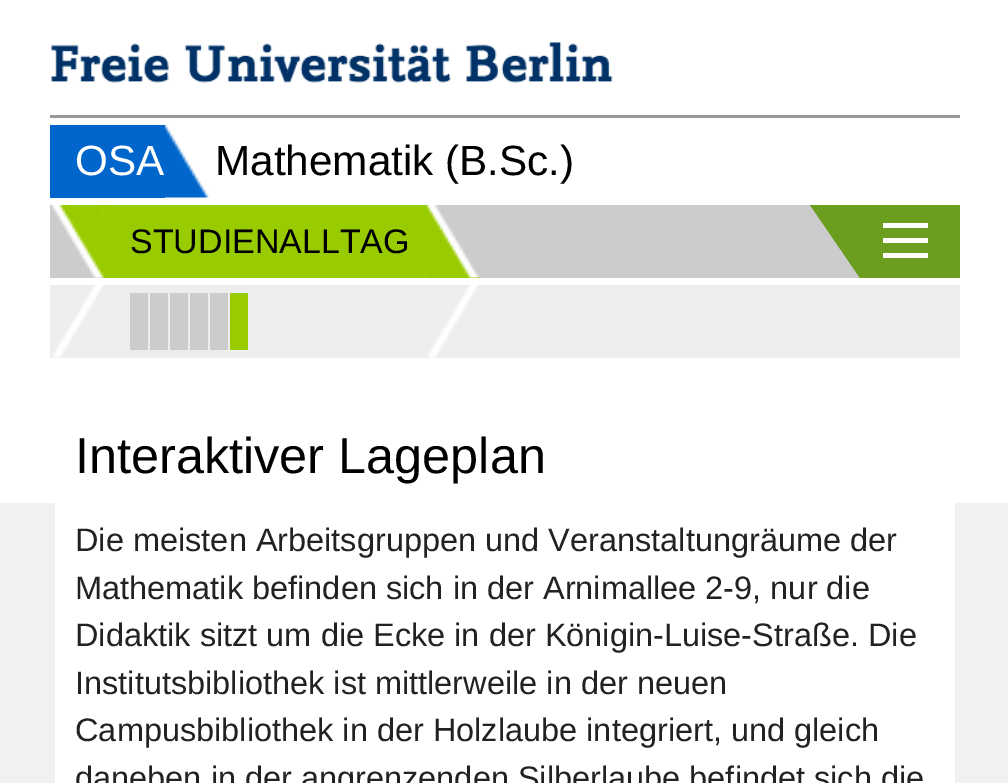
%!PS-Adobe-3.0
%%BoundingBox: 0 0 1008 783
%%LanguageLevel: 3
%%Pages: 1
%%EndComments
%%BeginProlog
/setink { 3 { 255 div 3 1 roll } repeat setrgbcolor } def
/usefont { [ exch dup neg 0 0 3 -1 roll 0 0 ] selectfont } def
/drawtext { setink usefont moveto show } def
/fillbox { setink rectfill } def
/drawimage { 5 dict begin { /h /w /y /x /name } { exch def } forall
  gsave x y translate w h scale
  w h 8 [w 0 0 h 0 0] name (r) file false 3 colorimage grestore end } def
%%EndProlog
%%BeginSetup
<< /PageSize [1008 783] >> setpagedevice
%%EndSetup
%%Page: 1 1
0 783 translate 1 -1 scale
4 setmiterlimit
0 0 1008 783 255 255 255 fillbox
(assets/img1.rgb) 51 42 562 41 drawimage
50 115 910 3 153 153 153 fillbox
(assets/img2.rgb) 165 125 44 73 drawimage
50 125 115 73 0 102 204 fillbox
(OSA) 75 175 /LiberationSans-Regular 42.25 255 255 255 drawtext
(Mathematik \(B.Sc.\)) 215 175 /LiberationSans-Regular 42.25 0 0 0 drawtext
50 205 810 73 204 204 204 fillbox
(assets/img3.rgb) 52 205 53 73 drawimage
50 285 910 73 238 238 238 fillbox
(assets/img4.rgb) 52 285 51 73 drawimage
105 205 375 73 153 204 0 fillbox
(assets/img5.rgb) 425 205 55 73 drawimage
(STUDIENALLTAG) 130 253 /LiberationSans-Regular 34 0 0 0 drawtext
(assets/img6.rgb) 427 285 51 73 drawimage
130 293 18 57 204 204 204 fillbox
150 293 18 57 204 204 204 fillbox
170 293 18 57 204 204 204 fillbox
190 293 18 57 204 204 204 fillbox
210 293 18 57 204 204 204 fillbox
230 293 18 57 153 204 0 fillbox
860 205 100 73 107 158 30 fillbox
860 205 moveto 860 278 lineto 810 205 lineto closepath fill
883 223 45 5 255 255 255 fillbox
883 238 45 5 255 255 255 fillbox
883 253 45 5 255 255 255 fillbox
0 503 55 280 241 241 241 fillbox
955 503 53 280 241 241 241 fillbox
(Interaktiver Lageplan) 75 473 /LiberationSans-Regular 50.4 0 0 0 drawtext
(Die meisten Arbeitsgruppen und Veranstaltungräume der) 75 551 /LiberationSans-Regular 32.5 34 34 34 drawtext
(Mathematik befinden sich in der Arnimallee 2-9, nur die) 75 599 /LiberationSans-Regular 32.5 34 34 34 drawtext
(Didaktik sitzt um die Ecke in der Königin-Luise-Straße. Die) 75 646 /LiberationSans-Regular 32.5 34 34 34 drawtext
(Institutsbibliothek ist mittlerweile in der neuen) 75 694 /LiberationSans-Regular 32.5 34 34 34 drawtext
(Campusbibliothek in der Holzlaube integriert, und gleich) 75 741 /LiberationSans-Regular 32.5 34 34 34 drawtext
(daneben in der angrenzenden Silberlaube befindet sich die) 75 789 /LiberationSans-Regular 32.5 34 34 34 drawtext
showpage
%%EOF
